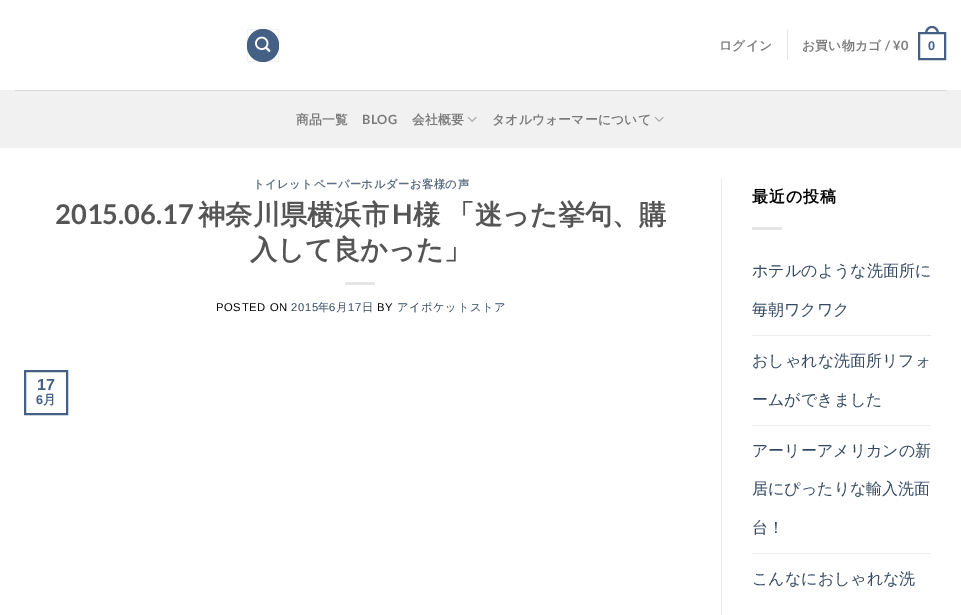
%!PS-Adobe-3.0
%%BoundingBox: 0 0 961 615
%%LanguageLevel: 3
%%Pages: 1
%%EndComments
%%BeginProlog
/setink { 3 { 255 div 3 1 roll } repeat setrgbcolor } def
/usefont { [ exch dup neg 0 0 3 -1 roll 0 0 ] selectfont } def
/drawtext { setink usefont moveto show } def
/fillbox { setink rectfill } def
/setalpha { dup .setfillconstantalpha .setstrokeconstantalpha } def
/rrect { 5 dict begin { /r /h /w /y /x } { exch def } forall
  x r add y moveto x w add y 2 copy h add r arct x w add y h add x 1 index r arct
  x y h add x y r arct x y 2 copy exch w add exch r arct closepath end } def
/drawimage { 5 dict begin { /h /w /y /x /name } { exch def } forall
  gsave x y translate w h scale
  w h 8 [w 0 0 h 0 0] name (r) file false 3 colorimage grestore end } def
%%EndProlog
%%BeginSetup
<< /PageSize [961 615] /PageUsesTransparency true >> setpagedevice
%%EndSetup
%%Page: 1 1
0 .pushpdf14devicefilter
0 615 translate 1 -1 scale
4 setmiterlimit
0 0 961 615 255 255 255 fillbox
68 96 132 setink
247 29 32 33 16 rrect fill
0.05 setalpha
0 0 0 setink
247.5 29.5 31 32 rectstroke
1 setalpha
(assets/img1.rgb) 255 36 16 16 drawimage
/WenQuanYiZenHei-Bold 12.75 usefont
123 123 123 setink
719 50 moveto 0.25 0 (ログイン) ashow
787 30 1 30 230 230 230 fillbox
123 123 123 setink
802 50 moveto 0.25 0 (お買い物カゴ) ashow
/Lato-Bold 12.75 usefont
885 50 moveto 0.25 0 (/ ¥0) ashow
68 96 132 setink
2 setlinewidth
919 33 26 26 rectstroke
932 26 moveto 936.5 26 939 30 939 34 curveto 925 34 lineto 925 30 927.5 26 932 26 curveto closepath 932 28 moveto 935.5 28 937 31 937 34 curveto 927 34 lineto 927 31 928.5 28 932 28 curveto closepath eofill
/LiberationSans-Bold 12.75 usefont
928 50 moveto 0.25 0 (0) ashow
0 90 961 58 241 241 241 fillbox
15 90 931 1 217 217 217 fillbox
/WenQuanYiZenHei-Bold 12.75 usefont
123 123 123 setink
296 124 moveto 0.25 0 (商品一覧) ashow
/Lato-Bold 12.75 usefont
362 124 moveto 0.25 0 (BLOG) ashow
/WenQuanYiZenHei-Bold 12.75 usefont
412 124 moveto 0.25 0 (会社概要) ashow
(assets/img2.rgb) 467 116 10 6 drawimage
492 124 moveto 0.25 0 (タオルウォーマーについて) ashow
(assets/img2.rgb) 654 116 10 6 drawimage
/WenQuanYiZenHei-Bold 11.25 usefont
92 109 129 setink
253 188 moveto 0.6 0 (トイレットペーパーホルダーお客様の声) ashow
(2015.06.17) 55 224 /Lato-Bold 27.25 85 85 85 drawtext
(神奈川県横浜市) 198 224 /WenQuanYiZenHei-Bold 27.25 85 85 85 drawtext
(H) 392 224 /Lato-Bold 27.25 85 85 85 drawtext
/WenQuanYiZenHei-Bold 27.25 usefont
413 224 moveto -1 0 32 (様 「迷った挙句、購) widthshow
(入して良かった」) 250 259 /WenQuanYiZenHei-Bold 27.25 85 85 85 drawtext
345 282 30 3 230 230 230 fillbox
/LiberationSans-Regular 11.25 usefont
0 0 0 setink
216 311 moveto 0.6 0 (POSTED ON) ashow
51 72 98 setink
291 311 moveto 0.6 0 (2015) ashow
/WenQuanYiZenHei-Medium 11.25 usefont
318 311 moveto 0.6 0 (年) ashow
/LiberationSans-Regular 11.25 usefont
329 311 moveto 0.6 0 (6) ashow
/WenQuanYiZenHei-Medium 11.25 usefont
336 311 moveto 0.6 0 (月) ashow
/LiberationSans-Regular 11.25 usefont
348 311 moveto 0.6 0 (17) ashow
/WenQuanYiZenHei-Medium 11.25 usefont
362 311 moveto 0.6 0 (日) ashow
/LiberationSans-Regular 11.25 usefont
0 0 0 setink
377 311 moveto 0.6 0 (BY) ashow
/WenQuanYiZenHei-Medium 11.25 usefont
51 72 98 setink
397 311 moveto 0.6 0 (アイポケットストア) ashow
68 96 132 setink
25 371 42 43 rectstroke
(17) 37 390 /LiberationSans-Bold 16 68 96 132 drawtext
(6) 36 404 /LiberationSans-Bold 12.75 68 96 132 drawtext
(月) 43 404 /WenQuanYiZenHei-Bold 12.75 68 96 132 drawtext
721 178 1 437 236 236 236 fillbox
/WenQuanYiZenHei-Bold 16 usefont
0 0 0 setink
752 202 moveto 1 0 (最近の投稿) ashow
752 227 30 3 230 230 230 fillbox
(ホテルのような洗面所に) 752 276 /WenQuanYiZenHei-Medium 16 51 72 98 drawtext
(毎朝ワクワク) 752 315 /WenQuanYiZenHei-Medium 16 51 72 98 drawtext
752 335 179 1 236 236 236 fillbox
(おしゃれな洗面所リフォ) 752 366 /WenQuanYiZenHei-Medium 16 51 72 98 drawtext
(ームができました) 752 405 /WenQuanYiZenHei-Medium 16 51 72 98 drawtext
752 425 179 1 236 236 236 fillbox
(アーリーアメリカンの新) 752 456 /WenQuanYiZenHei-Medium 16 51 72 98 drawtext
(居にぴったりな輸入洗面) 752 494 /WenQuanYiZenHei-Medium 16 51 72 98 drawtext
(台！) 752 533 /WenQuanYiZenHei-Medium 16 51 72 98 drawtext
752 553 179 1 236 236 236 fillbox
(こんなにおしゃれな洗) 752 584 /WenQuanYiZenHei-Medium 16 51 72 98 drawtext
.poppdf14devicefilter showpage
%%EOF
